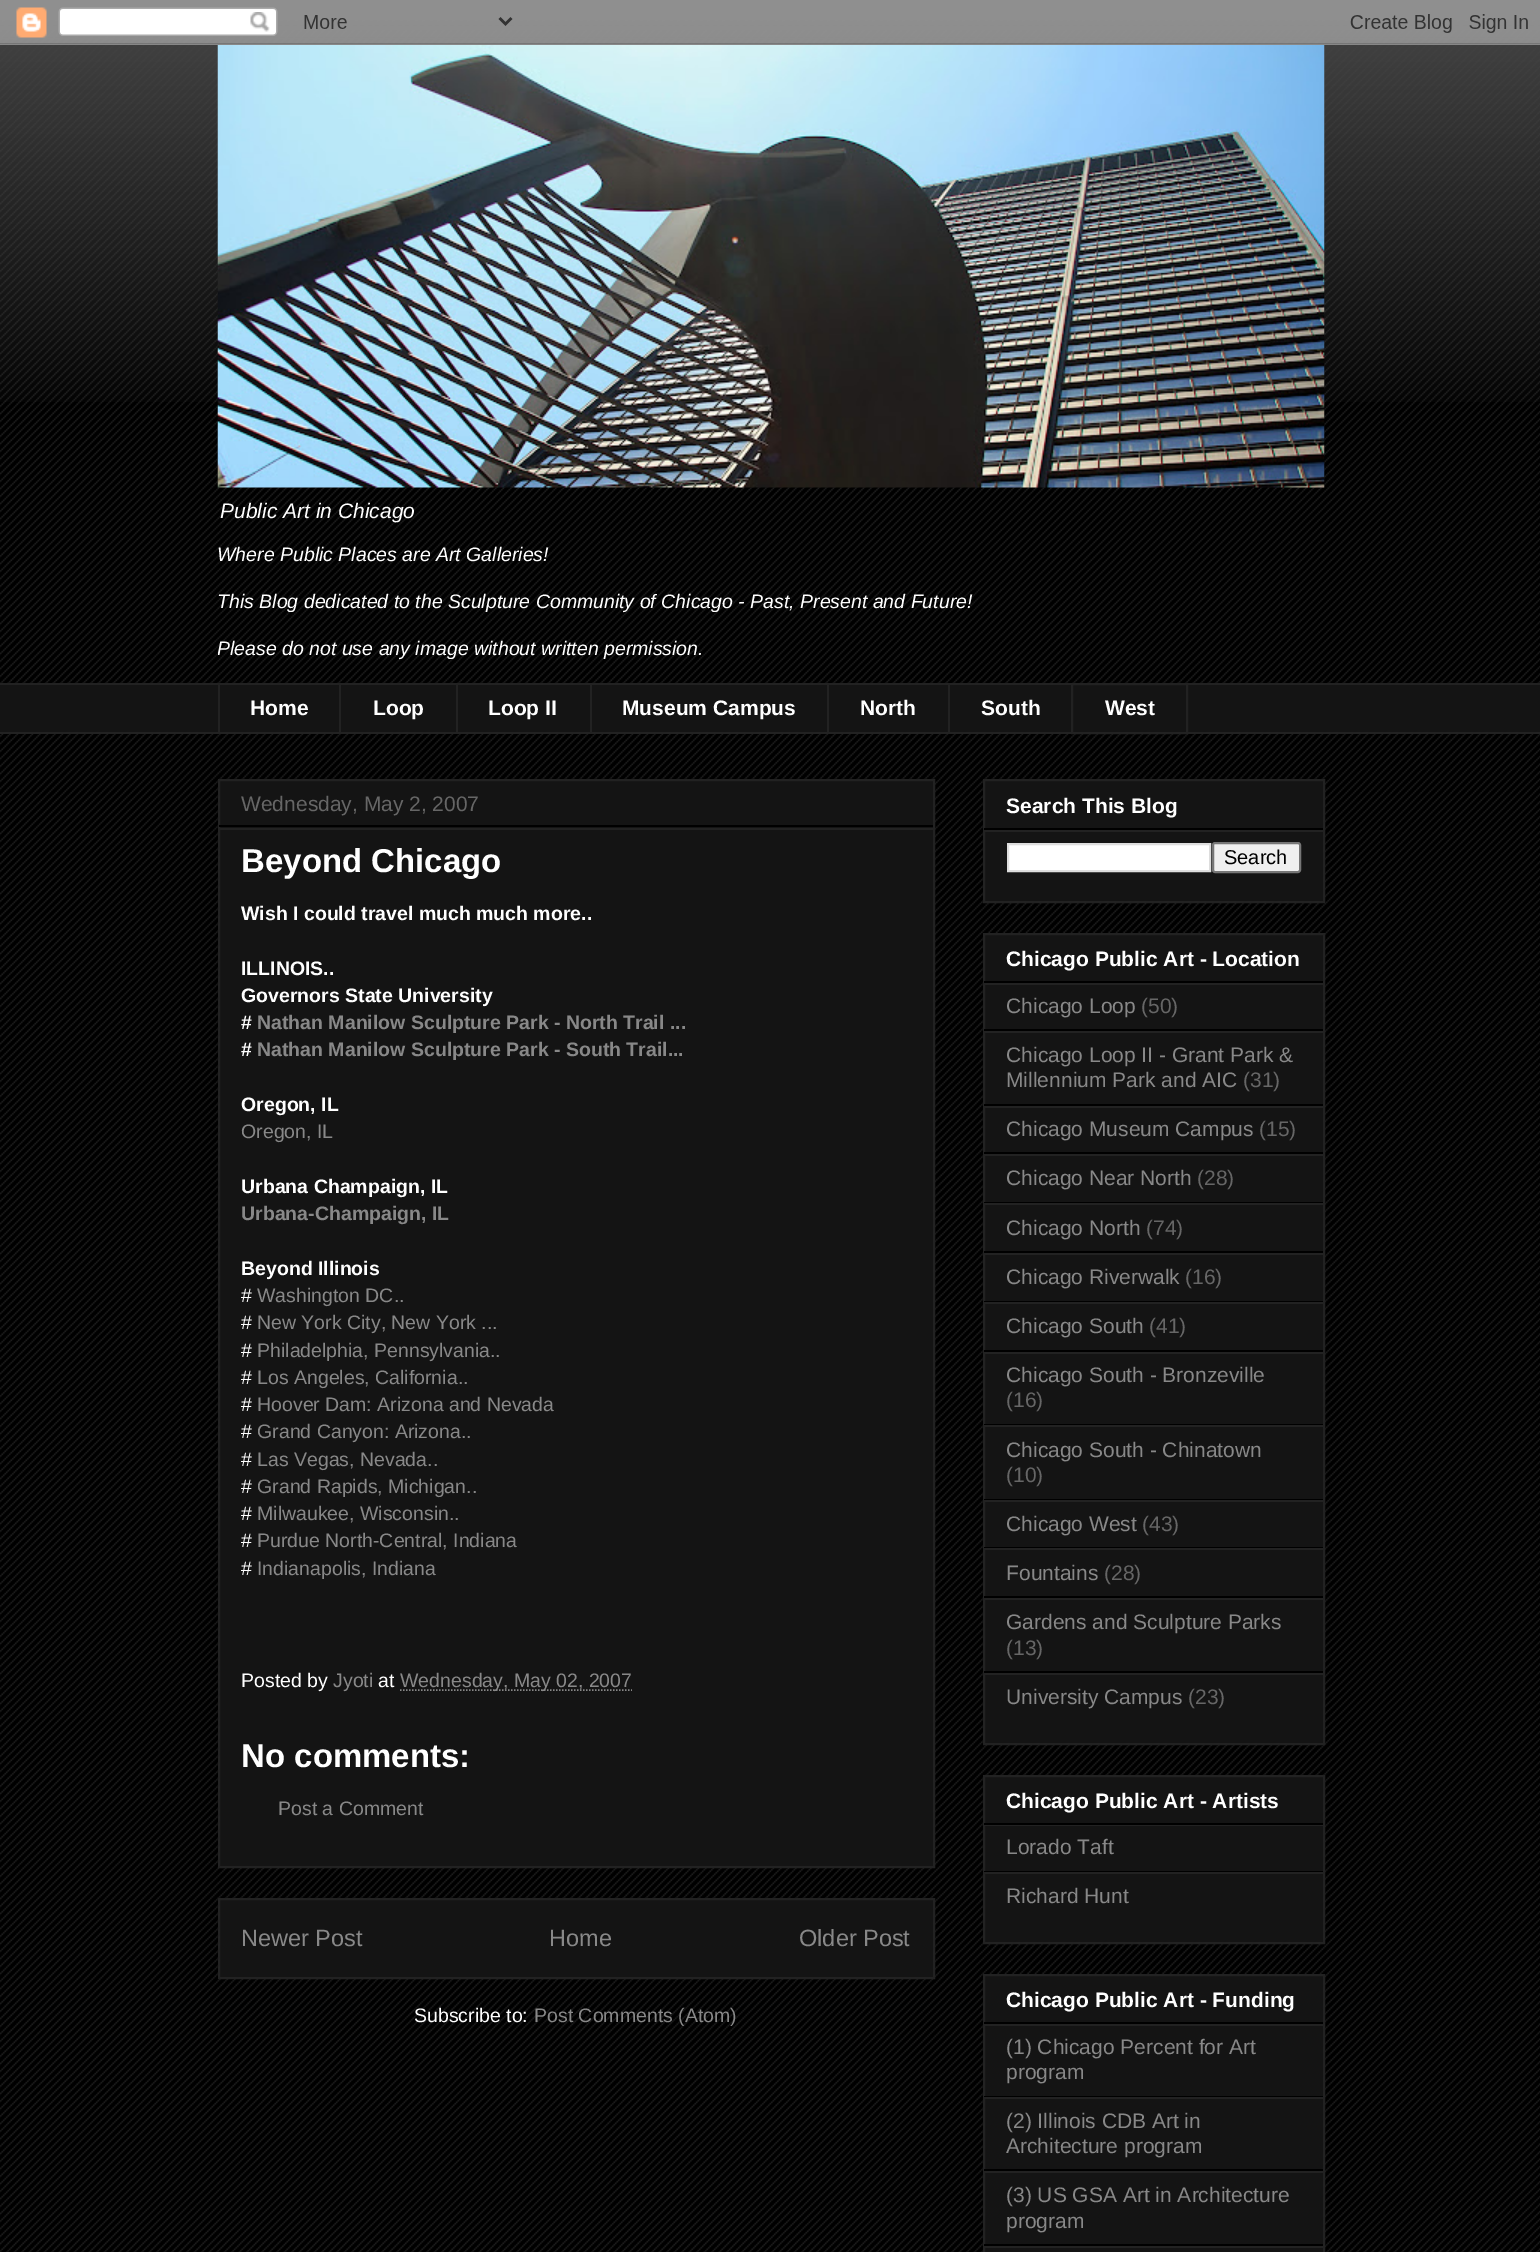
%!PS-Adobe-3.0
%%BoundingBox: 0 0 1540 2252
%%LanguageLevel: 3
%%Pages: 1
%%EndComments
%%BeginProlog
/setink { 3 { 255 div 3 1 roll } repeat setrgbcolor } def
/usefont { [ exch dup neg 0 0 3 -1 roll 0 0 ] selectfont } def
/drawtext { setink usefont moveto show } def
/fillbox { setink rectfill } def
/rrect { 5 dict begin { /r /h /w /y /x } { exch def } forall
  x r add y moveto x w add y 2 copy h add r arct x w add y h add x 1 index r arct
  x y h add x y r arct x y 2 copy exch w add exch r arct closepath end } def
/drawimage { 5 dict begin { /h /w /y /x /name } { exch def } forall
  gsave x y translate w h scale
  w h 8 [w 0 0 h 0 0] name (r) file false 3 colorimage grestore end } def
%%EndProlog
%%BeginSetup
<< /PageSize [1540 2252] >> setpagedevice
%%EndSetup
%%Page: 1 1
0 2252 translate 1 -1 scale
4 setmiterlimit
0 0 1540 2252 0 0 0 fillbox
(assets/img1.rgb) 0 20 1540 2232 drawimage
(assets/img2.rgb) 0 0 1540 402 drawimage
(assets/img3.rgb) 0 0 1540 45 drawimage
(assets/img4.rgb) 217 45 1108 443 drawimage
(Public Art in Chicago) 220 518 /LiberationSans-Italic 21 255 255 255 drawtext
(Where Public Places are Art Galleries!) 217 561 /LiberationSans-Italic 19.5 255 255 255 drawtext
(This Blog dedicated to the Sculpture Community of Chicago - Past, Present and Future!) 217 608 /LiberationSans-Italic 19.5 255 255 255 drawtext
gsave
218 45 1107 638 rectclip
(Please do not use any image without written permission.) 217 655 /LiberationSans-Italic 19.5 255 255 255 drawtext
grestore
0 685 1540 47 20 20 20 fillbox
0 683 1540 2 34 34 34 fillbox
218 683 2 51 34 34 34 fillbox
(Home) 250 715 /LiberationSans-Bold 21 255 255 255 drawtext
339 683 2 51 34 34 34 fillbox
(Loop) 373 715 /LiberationSans-Bold 21 255 255 255 drawtext
456 683 2 51 34 34 34 fillbox
(Loop II) 488 715 /LiberationSans-Bold 21 255 255 255 drawtext
590 683 2 51 34 34 34 fillbox
(Museum Campus) 622 715 /LiberationSans-Bold 21 255 255 255 drawtext
827 683 2 51 34 34 34 fillbox
(North) 860 715 /LiberationSans-Bold 21 255 255 255 drawtext
948 683 2 51 34 34 34 fillbox
(South) 981 715 /LiberationSans-Bold 21 255 255 255 drawtext
34 34 34 setink
2 setlinewidth
1072 684 115 49 rectstroke
(West) 1105 715 /LiberationSans-Bold 21 255 255 255 drawtext
0 732 1540 2 34 34 34 fillbox
20 20 20 setink
219 780 moveto 934 780 lineto 934 1867 lineto 219 1867 lineto closepath gsave fill grestore
34 34 34 setink
stroke
219 825 714 2 0 0 0 fillbox
(Wednesday, May 2, 2007) 241 811 /LiberationSans-Regular 21 102 102 102 drawtext
219 828 714 2 34 34 34 fillbox
(Beyond Chicago) 241 872 /LiberationSans-Bold 33 255 255 255 drawtext
(Wish I could travel much much more..) 241 920 /LiberationSans-Bold 19.5 255 255 255 drawtext
(ILLINOIS..) 241 975 /LiberationSans-Bold 19.5 255 255 255 drawtext
(Governors State University) 241 1002 /LiberationSans-Bold 19.5 255 255 255 drawtext
(#) 241 1029 /LiberationSans-Bold 19.5 255 255 255 drawtext
(Nathan Manilow Sculpture Park - North Trail ...) 257 1029 /LiberationSans-Bold 19.5 136 136 136 drawtext
(#) 241 1056 /LiberationSans-Bold 19.5 255 255 255 drawtext
(Nathan Manilow Sculpture Park - South Trail...) 257 1056 /LiberationSans-Bold 19.5 136 136 136 drawtext
(Oregon, IL) 241 1111 /LiberationSans-Bold 19.5 255 255 255 drawtext
(Oregon, IL) 241 1138 /LiberationSans-Regular 19.5 136 136 136 drawtext
(Urbana Champaign, IL) 241 1193 /LiberationSans-Bold 19.5 255 255 255 drawtext
(Urbana-Champaign, IL) 241 1220 /LiberationSans-Bold 19.5 136 136 136 drawtext
(Beyond Illinois) 241 1275 /LiberationSans-Bold 19.5 255 255 255 drawtext
(#) 241 1302 /LiberationSans-Regular 19.5 255 255 255 drawtext
(Washington DC..) 257 1302 /LiberationSans-Regular 19.5 136 136 136 drawtext
(#) 241 1329 /LiberationSans-Regular 19.5 255 255 255 drawtext
(New York City, New York ...) 257 1329 /LiberationSans-Regular 19.5 136 136 136 drawtext
(#) 241 1357 /LiberationSans-Regular 19.5 255 255 255 drawtext
(Philadelphia, Pennsylvania..) 257 1357 /LiberationSans-Regular 19.5 136 136 136 drawtext
(#) 241 1384 /LiberationSans-Regular 19.5 255 255 255 drawtext
(Los Angeles, California..) 257 1384 /LiberationSans-Regular 19.5 136 136 136 drawtext
(#) 241 1411 /LiberationSans-Regular 19.5 255 255 255 drawtext
(Hoover Dam: Arizona and Nevada) 257 1411 /LiberationSans-Regular 19.5 136 136 136 drawtext
(#) 241 1438 /LiberationSans-Regular 19.5 255 255 255 drawtext
(Grand Canyon: Arizona..) 257 1438 /LiberationSans-Regular 19.5 136 136 136 drawtext
(#) 241 1466 /LiberationSans-Regular 19.5 255 255 255 drawtext
(Las Vegas, Nevada..) 257 1466 /LiberationSans-Regular 19.5 136 136 136 drawtext
(#) 241 1493 /LiberationSans-Regular 19.5 255 255 255 drawtext
(Grand Rapids, Michigan..) 257 1493 /LiberationSans-Regular 19.5 136 136 136 drawtext
(#) 241 1520 /LiberationSans-Regular 19.5 255 255 255 drawtext
(Milwaukee, Wisconsin..) 257 1520 /LiberationSans-Regular 19.5 136 136 136 drawtext
(#) 241 1547 /LiberationSans-Regular 19.5 255 255 255 drawtext
(Purdue North-Central, Indiana) 257 1547 /LiberationSans-Regular 19.5 136 136 136 drawtext
(#) 241 1575 /LiberationSans-Regular 19.5 255 255 255 drawtext
(Indianapolis, Indiana) 257 1575 /LiberationSans-Regular 19.5 136 136 136 drawtext
(Posted by) 241 1687 /LiberationSans-Regular 19.5 255 255 255 drawtext
(Jyoti) 333 1687 /LiberationSans-Regular 19.5 136 136 136 drawtext
(at) 378 1687 /LiberationSans-Regular 19.5 255 255 255 drawtext
136 136 136 setink
1.5 setlinewidth
[1.5 1.5] 0 setdash
400 1690 moveto 632 1690 lineto stroke
(Wednesday, May 02, 2007) 400 1687 /LiberationSans-Regular 19.5 136 136 136 drawtext
(No comments:) 241 1767 /LiberationSans-Bold 33 255 255 255 drawtext
(Post a Comment) 278 1815 /LiberationSans-Regular 19.5 136 136 136 drawtext
20 20 20 setink
219 1899 moveto 934 1899 lineto 934 1978 lineto 219 1978 lineto closepath gsave fill grestore
34 34 34 setink
2 setlinewidth
[] 0 setdash
stroke
(Newer Post) 241 1946 /LiberationSans-Regular 23.5 136 136 136 drawtext
(Home) 549 1946 /LiberationSans-Regular 23.5 136 136 136 drawtext
(Older Post) 799 1946 /LiberationSans-Regular 23.5 136 136 136 drawtext
(Subscribe to:) 414 2022 /LiberationSans-Regular 19.5 255 255 255 drawtext
(Post Comments \(Atom\)) 534 2022 /LiberationSans-Regular 19.5 136 136 136 drawtext
20 20 20 setink
984 780 moveto 1324 780 lineto 1324 902 lineto 984 902 lineto closepath gsave fill grestore
34 34 34 setink
stroke
984 828 339 2 0 0 0 fillbox
(Search This Blog) 1006 813 /LiberationSans-Bold 21 255 255 255 drawtext
984 830 339 2 34 34 34 fillbox
255 255 255 setink
1008 844 moveto 1210 844 lineto 1210 871 lineto 1008 871 lineto closepath gsave fill grestore
221 221 221 setink
stroke
239 239 239 setink
1213 843 87 29 2 rrect gsave fill grestore
118 118 118 setink
stroke
(Search) 1224 864 /LiberationSans-Regular 20 0 0 0 drawtext
20 20 20 setink
984 934 moveto 1324 934 lineto 1324 1744 lineto 984 1744 lineto closepath gsave fill grestore
34 34 34 setink
stroke
984 981 339 2 0 0 0 fillbox
(Chicago Public Art - Location) 1006 966 /LiberationSans-Bold 21 255 255 255 drawtext
984 983 339 2 34 34 34 fillbox
984 1029 339 2 0 0 0 fillbox
(Chicago Loop) 1006 1013 /LiberationSans-Regular 21 136 136 136 drawtext
(\(50\)) 1141 1013 /LiberationSans-Regular 21 102 102 102 drawtext
984 1031 339 2 34 34 34 fillbox
984 1104 339 2 0 0 0 fillbox
(Chicago Loop II - Grant Park &) 1006 1062 /LiberationSans-Regular 21 136 136 136 drawtext
(Millennium Park and AIC) 1006 1087 /LiberationSans-Regular 21 136 136 136 drawtext
(\(31\)) 1243 1087 /LiberationSans-Regular 21 102 102 102 drawtext
984 1106 339 2 34 34 34 fillbox
984 1152 339 2 0 0 0 fillbox
(Chicago Museum Campus) 1006 1136 /LiberationSans-Regular 21 136 136 136 drawtext
(\(15\)) 1259 1136 /LiberationSans-Regular 21 102 102 102 drawtext
984 1154 339 2 34 34 34 fillbox
984 1202 339 1 0 0 0 fillbox
(Chicago Near North) 1006 1185 /LiberationSans-Regular 21 136 136 136 drawtext
(\(28\)) 1197 1185 /LiberationSans-Regular 21 102 102 102 drawtext
984 1203 339 2 34 34 34 fillbox
984 1251 339 2 0 0 0 fillbox
(Chicago North) 1006 1235 /LiberationSans-Regular 21 136 136 136 drawtext
(\(74\)) 1146 1235 /LiberationSans-Regular 21 102 102 102 drawtext
984 1253 339 2 34 34 34 fillbox
984 1301 339 1 0 0 0 fillbox
(Chicago Riverwalk) 1006 1284 /LiberationSans-Regular 21 136 136 136 drawtext
(\(16\)) 1185 1284 /LiberationSans-Regular 21 102 102 102 drawtext
984 1302 339 2 34 34 34 fillbox
984 1350 339 2 0 0 0 fillbox
(Chicago South) 1006 1333 /LiberationSans-Regular 21 136 136 136 drawtext
(\(41\)) 1149 1333 /LiberationSans-Regular 21 102 102 102 drawtext
984 1352 339 2 34 34 34 fillbox
984 1424 339 1 0 0 0 fillbox
(Chicago South - Bronzeville) 1006 1382 /LiberationSans-Regular 21 136 136 136 drawtext
(\(16\)) 1006 1407 /LiberationSans-Regular 21 102 102 102 drawtext
984 1425 339 2 34 34 34 fillbox
984 1499 339 1 0 0 0 fillbox
(Chicago South - Chinatown) 1006 1457 /LiberationSans-Regular 21 136 136 136 drawtext
(\(10\)) 1006 1482 /LiberationSans-Regular 21 102 102 102 drawtext
984 1500 339 2 34 34 34 fillbox
984 1547 339 1 0 0 0 fillbox
(Chicago West) 1006 1531 /LiberationSans-Regular 21 136 136 136 drawtext
(\(43\)) 1142 1531 /LiberationSans-Regular 21 102 102 102 drawtext
984 1548 339 2 34 34 34 fillbox
984 1596 339 2 0 0 0 fillbox
(Fountains) 1006 1580 /LiberationSans-Regular 21 136 136 136 drawtext
(\(28\)) 1104 1580 /LiberationSans-Regular 21 102 102 102 drawtext
984 1598 339 2 34 34 34 fillbox
984 1671 339 2 0 0 0 fillbox
(Gardens and Sculpture Parks) 1006 1629 /LiberationSans-Regular 21 136 136 136 drawtext
(\(13\)) 1006 1655 /LiberationSans-Regular 21 102 102 102 drawtext
984 1673 339 2 34 34 34 fillbox
(University Campus) 1006 1704 /LiberationSans-Regular 21 136 136 136 drawtext
(\(23\)) 1188 1704 /LiberationSans-Regular 21 102 102 102 drawtext
20 20 20 setink
984 1776 moveto 1324 1776 lineto 1324 1943 lineto 984 1943 lineto closepath gsave fill grestore
34 34 34 setink
stroke
984 1823 339 2 0 0 0 fillbox
(Chicago Public Art - Artists) 1006 1808 /LiberationSans-Bold 21 255 255 255 drawtext
984 1825 339 1 34 34 34 fillbox
984 1871 339 1 0 0 0 fillbox
(Lorado Taft) 1006 1854 /LiberationSans-Regular 21 136 136 136 drawtext
984 1872 339 2 34 34 34 fillbox
(Richard Hunt) 1006 1903 /LiberationSans-Regular 21 136 136 136 drawtext
20 20 20 setink
984 1975 moveto 1324 1975 lineto 1324 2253 lineto 984 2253 lineto closepath gsave fill grestore
34 34 34 setink
stroke
984 2022 339 2 0 0 0 fillbox
(Chicago Public Art - Funding) 1006 2007 /LiberationSans-Bold 21 255 255 255 drawtext
984 2024 339 2 34 34 34 fillbox
984 2096 339 1 0 0 0 fillbox
(\(1\) Chicago Percent for Art) 1006 2054 /LiberationSans-Regular 21 136 136 136 drawtext
(program) 1006 2079 /LiberationSans-Regular 21 136 136 136 drawtext
984 2097 339 2 34 34 34 fillbox
984 2169 339 2 0 0 0 fillbox
(\(2\) Illinois CDB Art in) 1006 2128 /LiberationSans-Regular 21 136 136 136 drawtext
(Architecture program) 1006 2153 /LiberationSans-Regular 21 136 136 136 drawtext
984 2171 339 2 34 34 34 fillbox
984 2244 339 2 0 0 0 fillbox
(\(3\) US GSA Art in Architecture) 1006 2202 /LiberationSans-Regular 21 136 136 136 drawtext
(program) 1006 2228 /LiberationSans-Regular 21 136 136 136 drawtext
984 2246 339 2 34 34 34 fillbox
showpage
%%EOF
